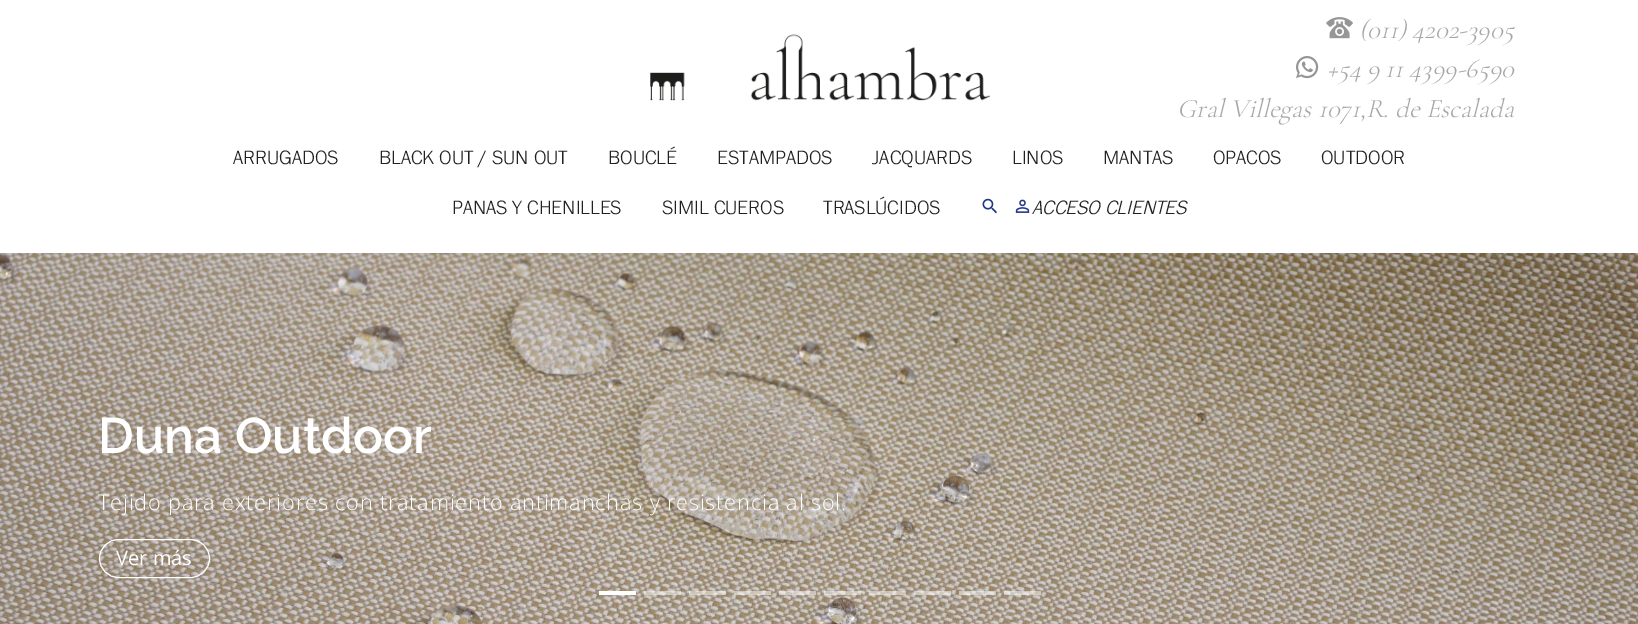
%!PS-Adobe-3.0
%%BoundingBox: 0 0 1638 624
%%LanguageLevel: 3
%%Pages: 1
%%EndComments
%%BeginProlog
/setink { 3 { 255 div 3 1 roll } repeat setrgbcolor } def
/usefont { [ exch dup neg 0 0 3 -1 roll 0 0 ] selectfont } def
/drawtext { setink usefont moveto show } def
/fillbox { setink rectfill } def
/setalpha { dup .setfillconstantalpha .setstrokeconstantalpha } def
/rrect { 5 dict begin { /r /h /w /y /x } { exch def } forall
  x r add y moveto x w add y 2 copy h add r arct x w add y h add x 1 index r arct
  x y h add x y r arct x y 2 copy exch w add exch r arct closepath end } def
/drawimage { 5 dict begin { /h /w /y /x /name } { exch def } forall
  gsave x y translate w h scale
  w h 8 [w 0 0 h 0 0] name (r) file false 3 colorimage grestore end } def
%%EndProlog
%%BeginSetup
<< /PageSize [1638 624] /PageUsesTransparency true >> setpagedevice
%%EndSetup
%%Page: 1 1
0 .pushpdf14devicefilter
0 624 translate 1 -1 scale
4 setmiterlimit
0 0 1638 624 255 255 255 fillbox
(assets/img1.rgb) 650 34 340 67 drawimage
(assets/img2.rgb) 1326 17 27 22 drawimage
(\(011\) 4202-3905) 1359 38 /CormorantGaramond-LightItalic 26.7 164 166 167 drawtext
(assets/img3.rgb) 1296 56 23 23 drawimage
(+54 9 11 4399-6590) 1327 77 /CormorantGaramond-LightItalic 26.7 164 166 167 drawtext
(Gral Villegas 1071,R. de Escalada) 1177 117 /CormorantGaramond-LightItalic 26.7 164 166 167 drawtext
(ARRUGADOS) 233 164 /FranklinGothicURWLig-Regular 20 33 33 33 drawtext
(BLACK OUT / SUN OUT) 379 164 /FranklinGothicURWLig-Regular 20 33 33 33 drawtext
(BOUCLÉ) 608 164 /FranklinGothicURWLig-Regular 20 33 33 33 drawtext
(ESTAMPADOS) 717 164 /FranklinGothicURWLig-Regular 20 33 33 33 drawtext
(JACQUARDS) 872 164 /FranklinGothicURWLig-Regular 20 33 33 33 drawtext
(LINOS) 1012 164 /FranklinGothicURWLig-Regular 20 33 33 33 drawtext
(MANTAS) 1103 164 /FranklinGothicURWLig-Regular 20 33 33 33 drawtext
(OPACOS) 1213 164 /FranklinGothicURWLig-Regular 20 33 33 33 drawtext
(OUTDOOR) 1321 164 /FranklinGothicURWLig-Regular 20 33 33 33 drawtext
(PANAS Y CHENILLES) 452 214 /FranklinGothicURWLig-Regular 20 33 33 33 drawtext
(SIMIL CUEROS) 662 214 /FranklinGothicURWLig-Regular 20 33 33 33 drawtext
(TRASLÚCIDOS) 823 214 /FranklinGothicURWLig-Regular 20 33 33 33 drawtext
(assets/img4.rgb) 982 198 15 16 drawimage
(assets/img5.rgb) 1015 199 15 14 drawimage
(ACCESO CLIENTES) 1032 214 /FranklinGothicURWLig-Italic 20 33 33 33 drawtext
(assets/img6.rgb) 0 253 1638 371 drawimage
(Duna Outdoor) 98 453 /Raleway-SemiBold 50 255 255 255 drawtext
/OpenSans-Light 21.65 usefont
98 510 moveto 0.83 0 (Tejido para exteriores con tratamiento antimanchas y resistencia al sol.) ashow
99.5 539.5 110 38 19 rrect stroke
(Ver más) 116 565 /OpenSans-Regular 20 255 255 255 drawtext
599 591 37 4 255 255 255 fillbox
0.5 setalpha
644 591 37 4 255 255 255 fillbox
689 591 37 4 255 255 255 fillbox
734 591 37 4 255 255 255 fillbox
779 591 37 4 255 255 255 fillbox
824 591 37 4 255 255 255 fillbox
869 591 37 4 255 255 255 fillbox
914 591 37 4 255 255 255 fillbox
959 591 37 4 255 255 255 fillbox
1004 591 37 4 255 255 255 fillbox
.poppdf14devicefilter showpage
%%EOF
